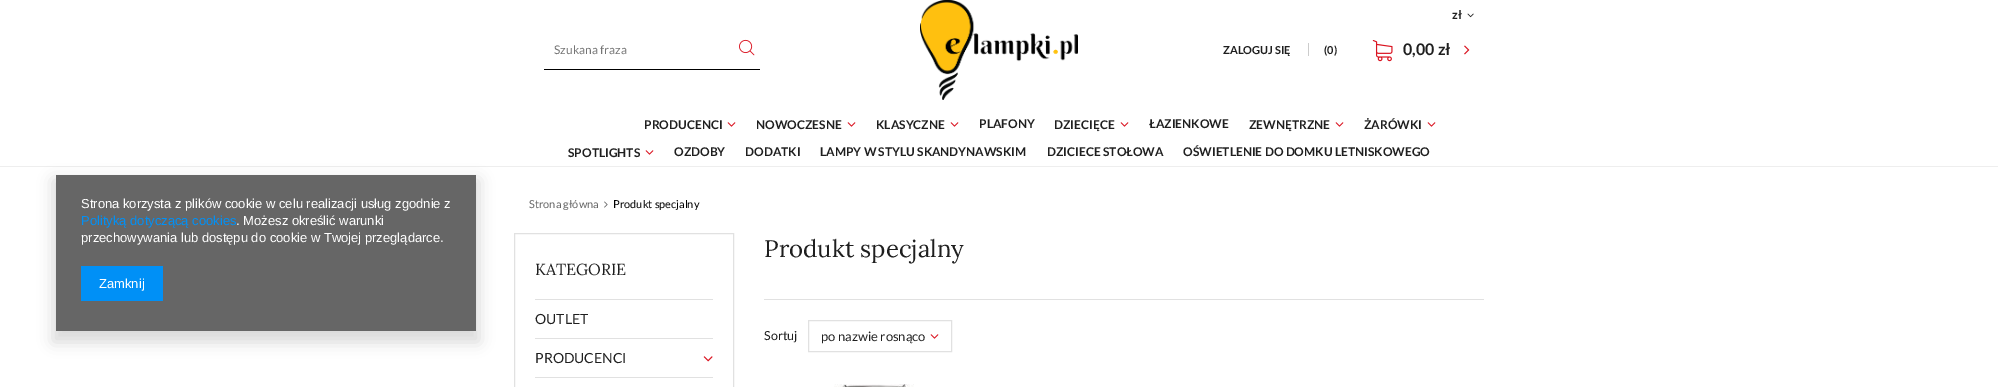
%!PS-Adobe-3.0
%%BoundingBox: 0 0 1998 387
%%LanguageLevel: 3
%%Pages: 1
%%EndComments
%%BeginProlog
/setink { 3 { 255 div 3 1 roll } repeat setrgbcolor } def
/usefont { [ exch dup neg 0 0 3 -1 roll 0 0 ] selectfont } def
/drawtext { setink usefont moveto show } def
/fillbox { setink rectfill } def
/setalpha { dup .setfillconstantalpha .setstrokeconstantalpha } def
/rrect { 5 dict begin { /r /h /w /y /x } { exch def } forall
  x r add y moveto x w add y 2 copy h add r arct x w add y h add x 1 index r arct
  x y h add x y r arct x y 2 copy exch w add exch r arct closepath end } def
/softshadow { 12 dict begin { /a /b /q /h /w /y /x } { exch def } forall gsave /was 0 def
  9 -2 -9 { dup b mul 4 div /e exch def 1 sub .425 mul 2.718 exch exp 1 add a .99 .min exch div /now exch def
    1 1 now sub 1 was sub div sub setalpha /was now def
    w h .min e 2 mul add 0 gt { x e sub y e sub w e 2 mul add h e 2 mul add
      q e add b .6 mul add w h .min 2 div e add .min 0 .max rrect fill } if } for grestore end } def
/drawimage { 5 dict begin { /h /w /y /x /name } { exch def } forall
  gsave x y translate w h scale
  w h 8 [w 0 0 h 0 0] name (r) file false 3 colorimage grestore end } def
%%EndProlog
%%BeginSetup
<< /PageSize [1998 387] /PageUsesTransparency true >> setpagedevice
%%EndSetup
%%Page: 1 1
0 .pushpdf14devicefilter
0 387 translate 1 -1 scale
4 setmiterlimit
0 0 1998 387 255 255 255 fillbox
0 166 1998 1 238 238 238 fillbox
0 0 0 setink
53 180 426 162 0 7.5 0.15 softshadow
56 175 420 156 102 102 102 fillbox
(Strona korzysta z plików cookie w celu realizacji usług zgodnie z) 81 208 /LiberationSans-Regular 13 255 255 255 drawtext
(Polityką dotyczącą cookies) 81 225 /LiberationSans-Regular 13 0 144 246 drawtext
(. Możesz określić warunki) 236 225 /LiberationSans-Regular 13 255 255 255 drawtext
(przechowywania lub dostępu do cookie w Twojej przeglądarce.) 81 242 /LiberationSans-Regular 13 255 255 255 drawtext
81 266 82 35 0 144 246 fillbox
(Zamknij) 99 288 /LiberationSans-Regular 13 255 255 255 drawtext
(assets/img1.rgb) 920 0 158 100 drawimage
(zł) 1452 19 /Lato-Bold 12 31 31 31 drawtext
(assets/img2.rgb) 1467 13 7 5 drawimage
544 69 216 1 0 0 0 fillbox
(Szukana fraza) 554 54 /Lato-Regular 12 117 117 117 drawtext
(assets/img3.rgb) 739 39 16 17 drawimage
(ZALOGUJ SIĘ) 1223 54 /Lato-Bold 11 31 31 31 drawtext
1308 43 1 13 204 204 204 fillbox
(\(0\)) 1324 54 /Lato-Bold 11 31 31 31 drawtext
(assets/img4.rgb) 1372 40 21 22 drawimage
(0,00 zł) 1403 55 /Lato-Bold 16 31 31 31 drawtext
(assets/img5.rgb) 1464 45 6 10 drawimage
(PRODUCENCI) 644 129 /Lato-Bold 12 31 31 31 drawtext
(assets/img6.rgb) 727 122 9 5 drawimage
(NOWOCZESNE) 756 129 /Lato-Bold 12 31 31 31 drawtext
(assets/img6.rgb) 847 122 9 5 drawimage
(KLASYCZNE) 876 129 /Lato-Bold 12 31 31 31 drawtext
(assets/img6.rgb) 950 122 9 5 drawimage
(PLAFONY) 979 128 /Lato-Bold 12 31 31 31 drawtext
(DZIECIĘCE) 1054 129 /Lato-Bold 12 31 31 31 drawtext
(assets/img6.rgb) 1120 122 9 5 drawimage
(ŁAZIENKOWE) 1149 128 /Lato-Bold 12 31 31 31 drawtext
(ZEWNĘTRZNE) 1249 129 /Lato-Bold 12 31 31 31 drawtext
(assets/img6.rgb) 1335 122 9 5 drawimage
(ŻARÓWKI) 1364 129 /Lato-Bold 12 31 31 31 drawtext
(assets/img6.rgb) 1427 122 9 5 drawimage
(SPOTLIGHTS) 568 157 /Lato-Bold 12 31 31 31 drawtext
(assets/img6.rgb) 645 150 9 5 drawimage
(OZDOBY) 674 156 /Lato-Bold 12 31 31 31 drawtext
(DODATKI) 745 156 /Lato-Bold 12 31 31 31 drawtext
(LAMPY W STYLU SKANDYNAWSKIM) 820 156 /Lato-Bold 12 31 31 31 drawtext
(DZICIECE STOŁOWA) 1047 156 /Lato-Bold 12 31 31 31 drawtext
(OŚWIETLENIE DO DOMKU LETNISKOWEGO) 1183 156 /Lato-Bold 12 31 31 31 drawtext
(Strona główna) 529 208 /Lato-Regular 11 102 102 102 drawtext
(assets/img7.rgb) 604 201 4 7 drawimage
(Produkt specjalny) 613 208 /Lato-Regular 11 0 0 0 drawtext
225 225 225 setink
514.5 233.5 219 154 rectstroke
(KATEGORIE) 535 275 /Lora-Regular 16 31 31 31 drawtext
535 299 178 1 225 225 225 fillbox
(OUTLET) 535 324 /Lato-Regular 14 31 31 31 drawtext
535 338 178 1 225 225 225 fillbox
(PRODUCENCI) 535 363 /Lato-Regular 14 31 31 31 drawtext
(assets/img8.rgb) 703 356 10 6 drawimage
535 377 178 1 225 225 225 fillbox
(Produkt specjalny) 764 257 /Lora-Regular 24 31 31 31 drawtext
764 299 720 1 225 225 225 fillbox
(Sortuj) 764 340 /Lato-Regular 12.5 31 31 31 drawtext
225 225 225 setink
808.5 320.5 143 31 rectstroke
(po nazwie rosnąco) 821 341 /Lato-Regular 13 31 31 31 drawtext
(assets/img6.rgb) 930 334 9 5 drawimage
(assets/img9.rgb) 834 384 80 3 drawimage
.poppdf14devicefilter showpage
%%EOF
